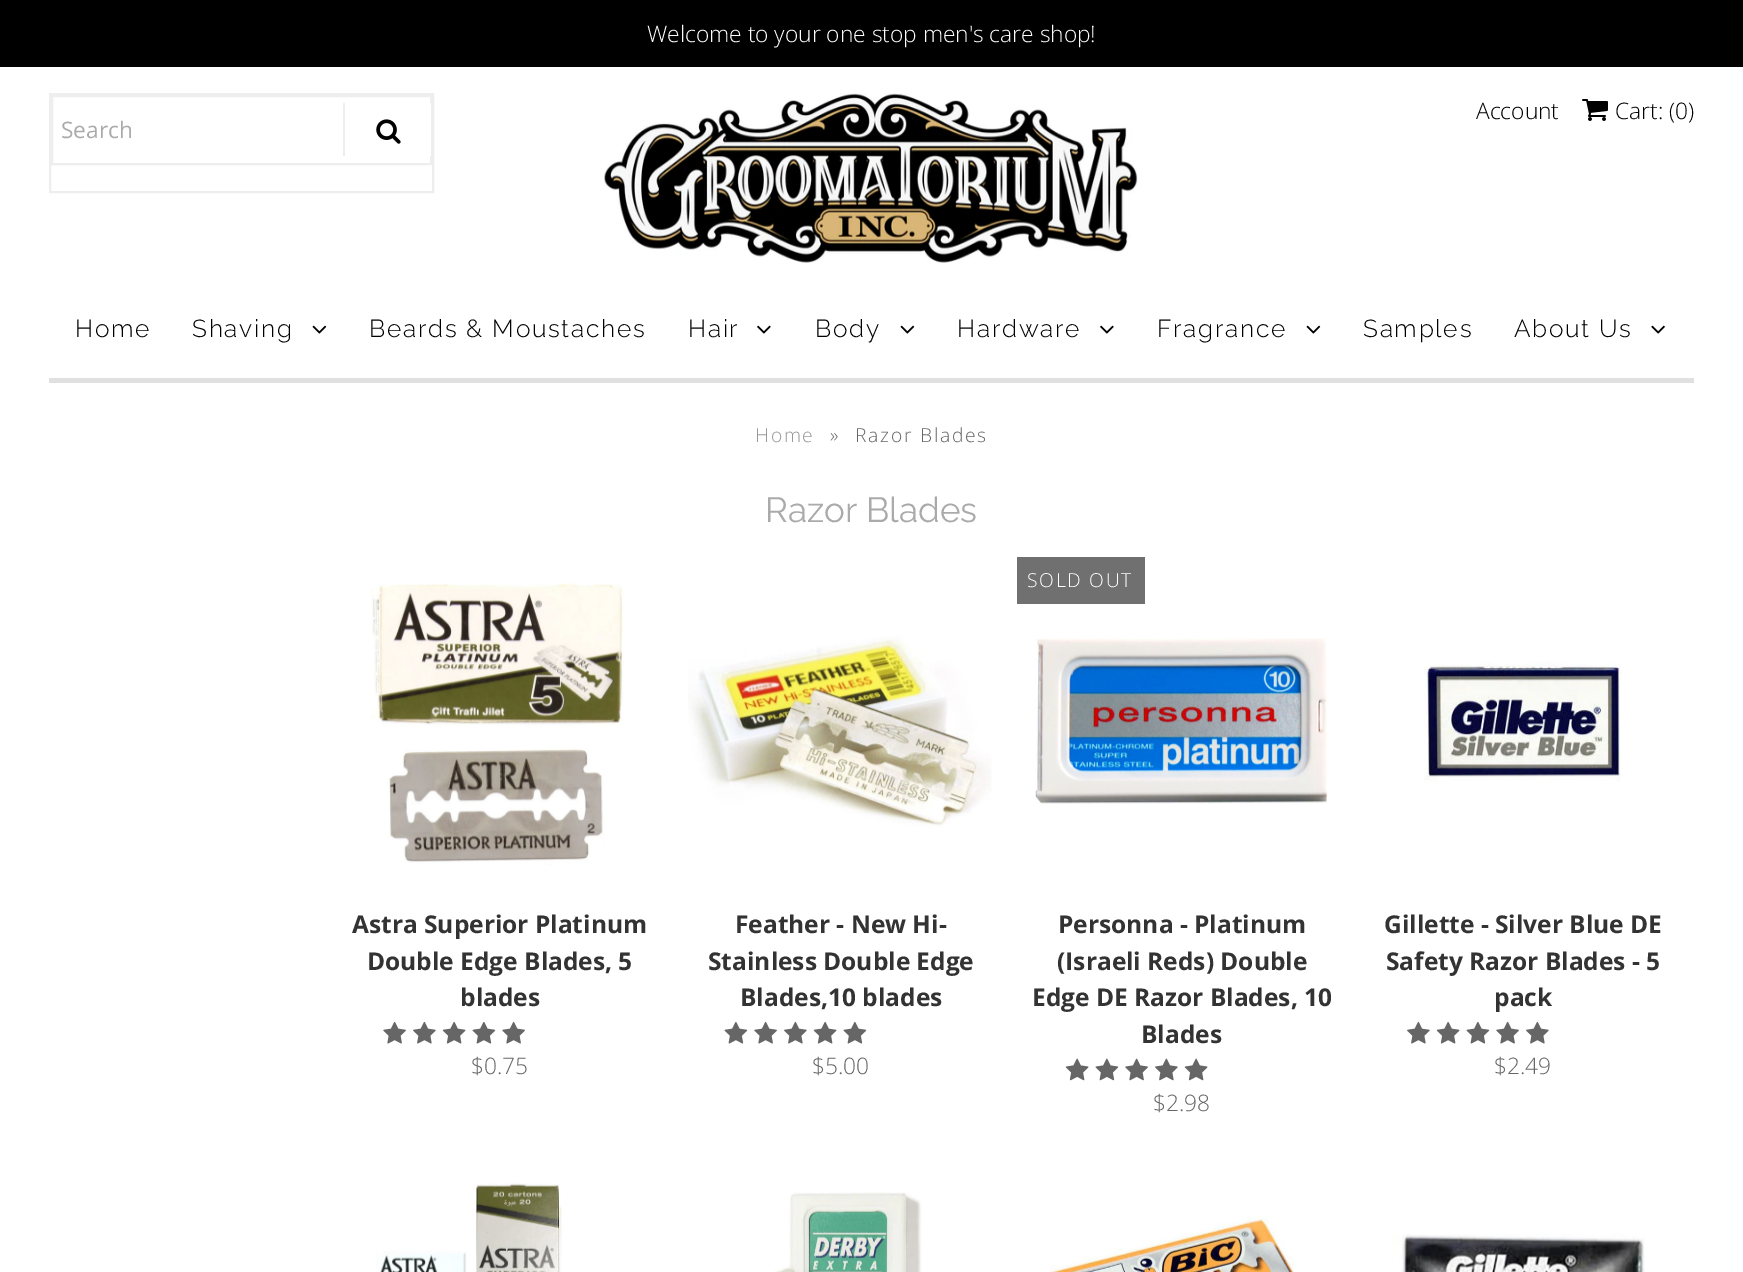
%!PS-Adobe-3.0
%%BoundingBox: 0 0 1743 1272
%%LanguageLevel: 3
%%Pages: 1
%%EndComments
%%BeginProlog
/setink { 3 { 255 div 3 1 roll } repeat setrgbcolor } def
/usefont { [ exch dup neg 0 0 3 -1 roll 0 0 ] selectfont } def
/drawtext { setink usefont moveto show } def
/fillbox { setink rectfill } def
/drawimage { 5 dict begin { /h /w /y /x /name } { exch def } forall
  gsave x y translate w h scale
  w h 8 [w 0 0 h 0 0] name (r) file false 3 colorimage grestore end } def
%%EndProlog
%%BeginSetup
<< /PageSize [1743 1272] >> setpagedevice
%%EndSetup
%%Page: 1 1
0 1272 translate 1 -1 scale
4 setmiterlimit
0 0 1743 1272 255 255 255 fillbox
0 0 1743 67 0 0 0 fillbox
(Welcome to your one stop men's care shop!) 647 42 /OpenSans-Light 22.75 255 255 255 drawtext
(assets/img1.rgb) 604 93 534 170 drawimage
(Account) 1476 119 /OpenSans-Light 22.75 0 0 0 drawtext
(assets/img2.rgb) 1582 99 26 22 drawimage
(Cart: \(0\)) 1615 119 /OpenSans-Light 22.75 0 0 0 drawtext
238 238 238 setink
2 setlinewidth
50 94 383 98 rectstroke
52 96 379 68 rectstroke
(Search) 61 138 /OpenSans-Regular 22.75 170 170 170 drawtext
430 103 1 53 255 255 255 fillbox
343 103 2 53 238 238 238 fillbox
(assets/img3.rgb) 376 119 25 25 drawimage
49 378 1645 5 224 224 224 fillbox
/Raleway-Light 24.5 usefont
0 0 0 setink
75 337 moveto 1.75 0 (Home) ashow
192 337 moveto 1.75 0 (Shaving) ashow
(assets/img4.rgb) 312 325 15 9 drawimage
369 337 moveto 1.75 0 (Beards & Moustaches) ashow
688 337 moveto 1.75 0 (Hair) ashow
(assets/img5.rgb) 757 325 14 9 drawimage
815 337 moveto 1.75 0 (Body) ashow
(assets/img4.rgb) 900 325 15 9 drawimage
957 337 moveto 1.75 0 (Hardware) ashow
(assets/img5.rgb) 1100 325 14 9 drawimage
1157 337 moveto 1.75 0 (Fragrance) ashow
(assets/img4.rgb) 1306 325 15 9 drawimage
1363 337 moveto 1.75 0 (Samples) ashow
1514 337 moveto 1.75 0 (About Us) ashow
(assets/img6.rgb) 1651 325 14 9 drawimage
/OpenSans-Light 19.25 usefont
153 153 153 setink
755 442 moveto 1.75 0 (Home) ashow
102 102 102 setink
830 442 moveto 1.75 0 (») ashow
855 442 moveto 1.75 0 (Razor Blades) ashow
(Razor Blades) 765 522 /Raleway-Regular 35 170 170 170 drawtext
(assets/img7.rgb) 370 583 254 283 drawimage
(Astra Superior Platinum) 352 933 /OpenSans-Bold 24.5 51 51 51 drawtext
(Double Edge Blades, 5) 367 970 /OpenSans-Bold 24.5 51 51 51 drawtext
(blades) 460 1006 /OpenSans-Bold 24.5 51 51 51 drawtext
(assets/img8.rgb) 383 1021 23 23 drawimage
(assets/img9.rgb) 413 1021 23 23 drawimage
(assets/img10.rgb) 442 1021 24 23 drawimage
(assets/img11.rgb) 472 1021 24 23 drawimage
(assets/img8.rgb) 502 1021 23 23 drawimage
($0.75) 471 1074 /OpenSans-Light 22.75 102 102 102 drawtext
(assets/img12.rgb) 688 636 304 191 drawimage
(Feather - New Hi-) 735 933 /OpenSans-Bold 24.5 51 51 51 drawtext
(Stainless Double Edge) 708 970 /OpenSans-Bold 24.5 51 51 51 drawtext
(Blades,10 blades) 740 1006 /OpenSans-Bold 24.5 51 51 51 drawtext
(assets/img11.rgb) 724 1021 24 23 drawimage
(assets/img8.rgb) 754 1021 23 23 drawimage
(assets/img9.rgb) 784 1021 23 23 drawimage
(assets/img10.rgb) 813 1021 24 23 drawimage
(assets/img11.rgb) 843 1021 24 23 drawimage
($5.00) 812 1074 /OpenSans-Light 22.75 102 102 102 drawtext
1017 557 128 47 112 112 112 fillbox
/OpenSans-Light 19.25 usefont
255 255 255 setink
1027 587 moveto 1.75 0 (SOLD OUT) ashow
(assets/img13.rgb) 1035 638 294 166 drawimage
(Personna - Platinum) 1058 933 /OpenSans-Bold 24.5 51 51 51 drawtext
(\(Israeli Reds\) Double) 1057 970 /OpenSans-Bold 24.5 51 51 51 drawtext
(Edge DE Razor Blades, 10) 1032 1006 /OpenSans-Bold 24.5 51 51 51 drawtext
(Blades) 1141 1043 /OpenSans-Bold 24.5 51 51 51 drawtext
(assets/img14.rgb) 1065 1058 24 23 drawimage
(assets/img15.rgb) 1095 1058 24 23 drawimage
(assets/img16.rgb) 1125 1058 23 23 drawimage
(assets/img17.rgb) 1155 1058 23 23 drawimage
(assets/img14.rgb) 1184 1058 24 23 drawimage
($2.98) 1153 1111 /OpenSans-Light 22.75 102 102 102 drawtext
(assets/img18.rgb) 1423 661 199 121 drawimage
(Gillette - Silver Blue DE) 1384 933 /OpenSans-Bold 24.5 51 51 51 drawtext
(Safety Razor Blades - 5) 1386 970 /OpenSans-Bold 24.5 51 51 51 drawtext
(pack) 1494 1006 /OpenSans-Bold 24.5 51 51 51 drawtext
(assets/img9.rgb) 1407 1021 23 23 drawimage
(assets/img10.rgb) 1436 1021 24 23 drawimage
(assets/img11.rgb) 1466 1021 24 23 drawimage
(assets/img8.rgb) 1496 1021 23 23 drawimage
(assets/img9.rgb) 1526 1021 23 23 drawimage
($2.49) 1494 1074 /OpenSans-Light 22.75 102 102 102 drawtext
(assets/img19.rgb) 376 1183 186 89 drawimage
(assets/img20.rgb) 774 1192 148 80 drawimage
(assets/img21.rgb) 1050 1215 244 57 drawimage
(assets/img22.rgb) 1390 1234 255 38 drawimage
showpage
%%EOF
